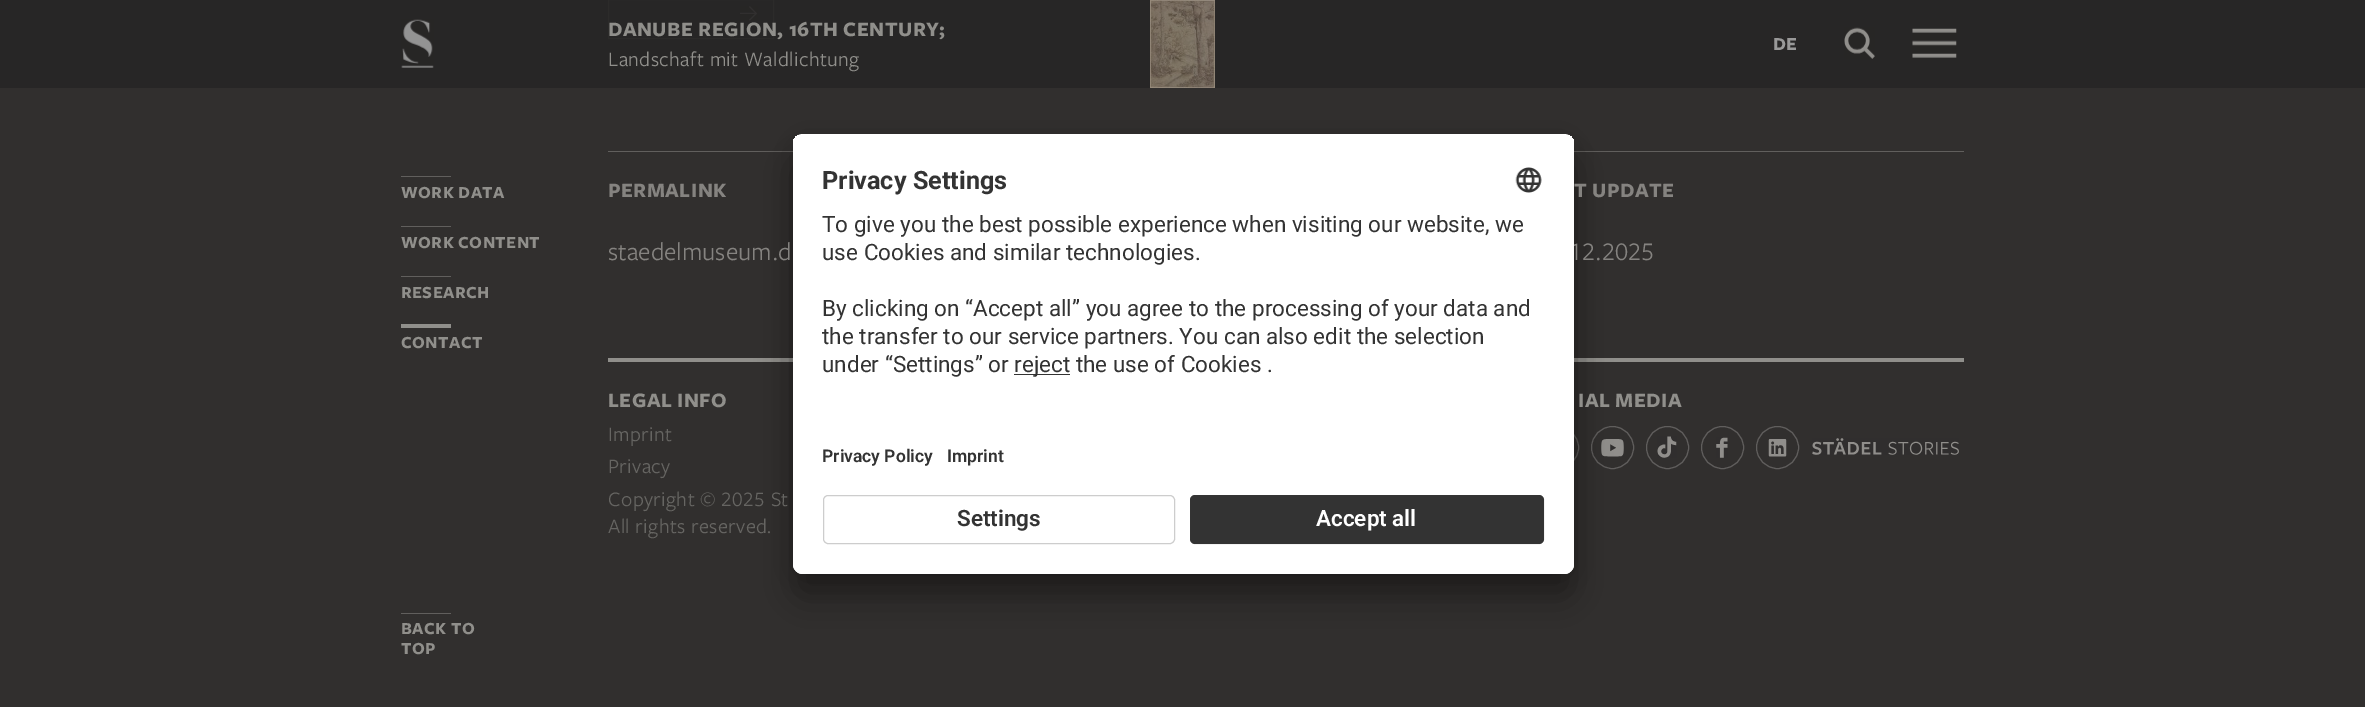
%!PS-Adobe-3.0
%%BoundingBox: 0 0 2365 707
%%LanguageLevel: 3
%%Pages: 1
%%EndComments
%%BeginProlog
/setink { 3 { 255 div 3 1 roll } repeat setrgbcolor } def
/usefont { [ exch dup neg 0 0 3 -1 roll 0 0 ] selectfont } def
/drawtext { setink usefont moveto show } def
/fillbox { setink rectfill } def
/setalpha { dup .setfillconstantalpha .setstrokeconstantalpha } def
/disc { newpath 0 360 arc closepath } def
/rrect { 5 dict begin { /r /h /w /y /x } { exch def } forall
  x r add y moveto x w add y 2 copy h add r arct x w add y h add x 1 index r arct
  x y h add x y r arct x y 2 copy exch w add exch r arct closepath end } def
/softshadow { 12 dict begin { /a /b /q /h /w /y /x } { exch def } forall gsave /was 0 def
  9 -2 -9 { dup b mul 4 div /e exch def 1 sub .425 mul 2.718 exch exp 1 add a .99 .min exch div /now exch def
    1 1 now sub 1 was sub div sub setalpha /was now def
    w h .min e 2 mul add 0 gt { x e sub y e sub w e 2 mul add h e 2 mul add
      q e add b .6 mul add w h .min 2 div e add .min 0 .max rrect fill } if } for grestore end } def
/drawimage { 5 dict begin { /h /w /y /x /name } { exch def } forall
  gsave x y translate w h scale
  w h 8 [w 0 0 h 0 0] name (r) file false 3 colorimage grestore end } def
%%EndProlog
%%BeginSetup
<< /PageSize [2365 707] /PageUsesTransparency true >> setpagedevice
%%EndSetup
%%Page: 1 1
0 .pushpdf14devicefilter
0 707 translate 1 -1 scale
4 setmiterlimit
0 0 2365 707 49 47 46 fillbox
0 0 2365 88 39 38 38 fillbox
(assets/img1.rgb) 401 19 33 49 drawimage
44 43 42 setink
608.5 -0.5 165 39 rectstroke
/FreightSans-Bold 21.25 usefont
144 143 139 setink
608 36 moveto 0.4 0 (DANUBE REGION, 16TH CENTURY;) ashow
/FreightSans-Regular 21.25 usefont
608 66 moveto 0.4 0 (Landschaft mit Waldlichtung) ashow
(assets/img2.rgb) 1150 0 65 88 drawimage
(DE) 1773 50 /FreightSans-Bold 19 153 153 153 drawtext
(assets/img3.rgb) 1844 27 31 32 drawimage
(assets/img4.rgb) 1912 28 45 30 drawimage
608 151 185 1 97 95 93 fillbox
1574 151 390 1 97 95 93 fillbox
608 358 185 4 144 143 139 fillbox
1574 358 390 4 144 143 139 fillbox
96 94 93 setink
1557.5 447.5 21 disc stroke
1612.5 447.5 21 disc stroke
(assets/img7.rgb) 1601 439 23 18 drawimage
0 0 0 setink
793 159 781 440 10 17.5 0.3 softshadow
793 140 781 440 10 16 0.22 softshadow
(12.2025) 1569 260 /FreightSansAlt-Regular 26.25 133 131 128 drawtext
255 255 255 setink
793 134 781 440 10 rrect fill
gsave
793 134 781 440 10 rrect clip newpath
803 134 moveto 1564 134 lineto 1569.5 134 1574 138.5 1574 144 curveto 1574 485 lineto 793 485 lineto 793 144 lineto 793 138.5 797.5 134 803 134 curveto closepath clip newpath
793 135 781 350 255 255 255 fillbox
grestore
(Privacy Settings) 822 189 /Roboto-Bold 25.25 51 51 51 drawtext
(assets/img5.rgb) 1515 167 27 26 drawimage
(To give you the best possible experience when visiting our website, we) 822 232 /Roboto-Regular 22.5 51 51 51 drawtext
(use Cookies and similar technologies.) 822 260 /Roboto-Regular 22.5 51 51 51 drawtext
(By clicking on “Accept all” you agree to the processing of your data and) 822 316 /Roboto-Regular 22.5 51 51 51 drawtext
(the transfer to our service partners. You can also edit the selection) 822 344 /Roboto-Regular 22.5 51 51 51 drawtext
(under “Settings” or) 822 372 /Roboto-Regular 22.5 51 51 51 drawtext
1014 374 56 1 51 51 51 fillbox
(reject the use of Cookies .) 1014 372 /Roboto-Regular 22.5 51 51 51 drawtext
(Privacy Policy) 822 462 /Roboto-SemiBold 17.5 51 51 51 drawtext
(Imprint) 947 462 /Roboto-SemiBold 17.5 51 51 51 drawtext
255 255 255 setink
793 485 moveto 1574 485 lineto 1574 564 lineto 1574 569.5 1569.5 574 1564 574 curveto 803 574 lineto 797.5 574 793 569.5 793 564 curveto closepath fill
205 205 205 setink
823.5 495.5 351 48 4.5 rrect stroke
(Settings) 957 526 /Roboto-SemiBold 22.5 51 51 51 drawtext
1190 495 354 49 5 rrect fill
0.25 setalpha
53 53 53 setink
1190.5 495.5 353 48 4.5 rrect stroke
1 setalpha
(Accept all) 1316 526 /Roboto-SemiBold 22.5 255 255 255 drawtext
401 176 50 1 97 95 93 fillbox
/FreightSans-Bold 17.5 usefont
144 143 139 setink
401 198 moveto 0.4 0 (WORK DATA) ashow
401 226 50 1 97 95 93 fillbox
144 143 139 setink
401 248 moveto 0.4 0 (WORK CONTENT) ashow
401 276 50 1 97 95 93 fillbox
144 143 139 setink
401 298 moveto 0.4 0 (RESEARCH) ashow
401 324 50 4 144 143 139 fillbox
401 348 moveto 0.4 0 (CONTACT) ashow
401 613 50 1 97 95 93 fillbox
144 143 139 setink
401 634 moveto 0.4 0 (BACK TO) ashow
401 654 moveto 0.4 0 (TOP) ashow
(assets/img6.rgb) 740 6 18 15 drawimage
/FreightSans-Bold 21.25 usefont
133 131 128 setink
608 197 moveto 0.4 0 (PERMALINK) ashow
(staedelmuseum.d) 608 260 /FreightSansAlt-Regular 26.25 133 131 128 drawtext
/FreightSans-Bold 21.25 usefont
1574 197 moveto 0.4 0 (T UPDATE) ashow
144 143 139 setink
608 407 moveto 0.4 0 (LEGAL INFO) ashow
/FreightSans-Regular 21.25 usefont
102 101 98 setink
608 441 moveto 0.4 0 (Imprint) ashow
608 473 moveto 0.4 0 (Privacy) ashow
/FreightSansAlt-Regular 21.25 usefont
608 506 moveto 0.4 0 (Copyright © 2025 St) ashow
/FreightSans-Regular 21.25 usefont
608 533 moveto 0.4 0 (All rights reserved.) ashow
/FreightSans-Bold 21.25 usefont
144 143 139 setink
1578 407 moveto 0.4 0 (IAL MEDIA) ashow
96 94 93 setink
1667.5 447.5 21 disc stroke
(assets/img8.rgb) 1657 436 20 22 drawimage
1722.5 447.5 21 disc stroke
(assets/img9.rgb) 1716 437 12 21 drawimage
1777.5 447.5 21 disc stroke
(assets/img10.rgb) 1768 439 19 18 drawimage
(assets/img11.rgb) 1812 438 147 17 drawimage
.poppdf14devicefilter showpage
%%EOF
